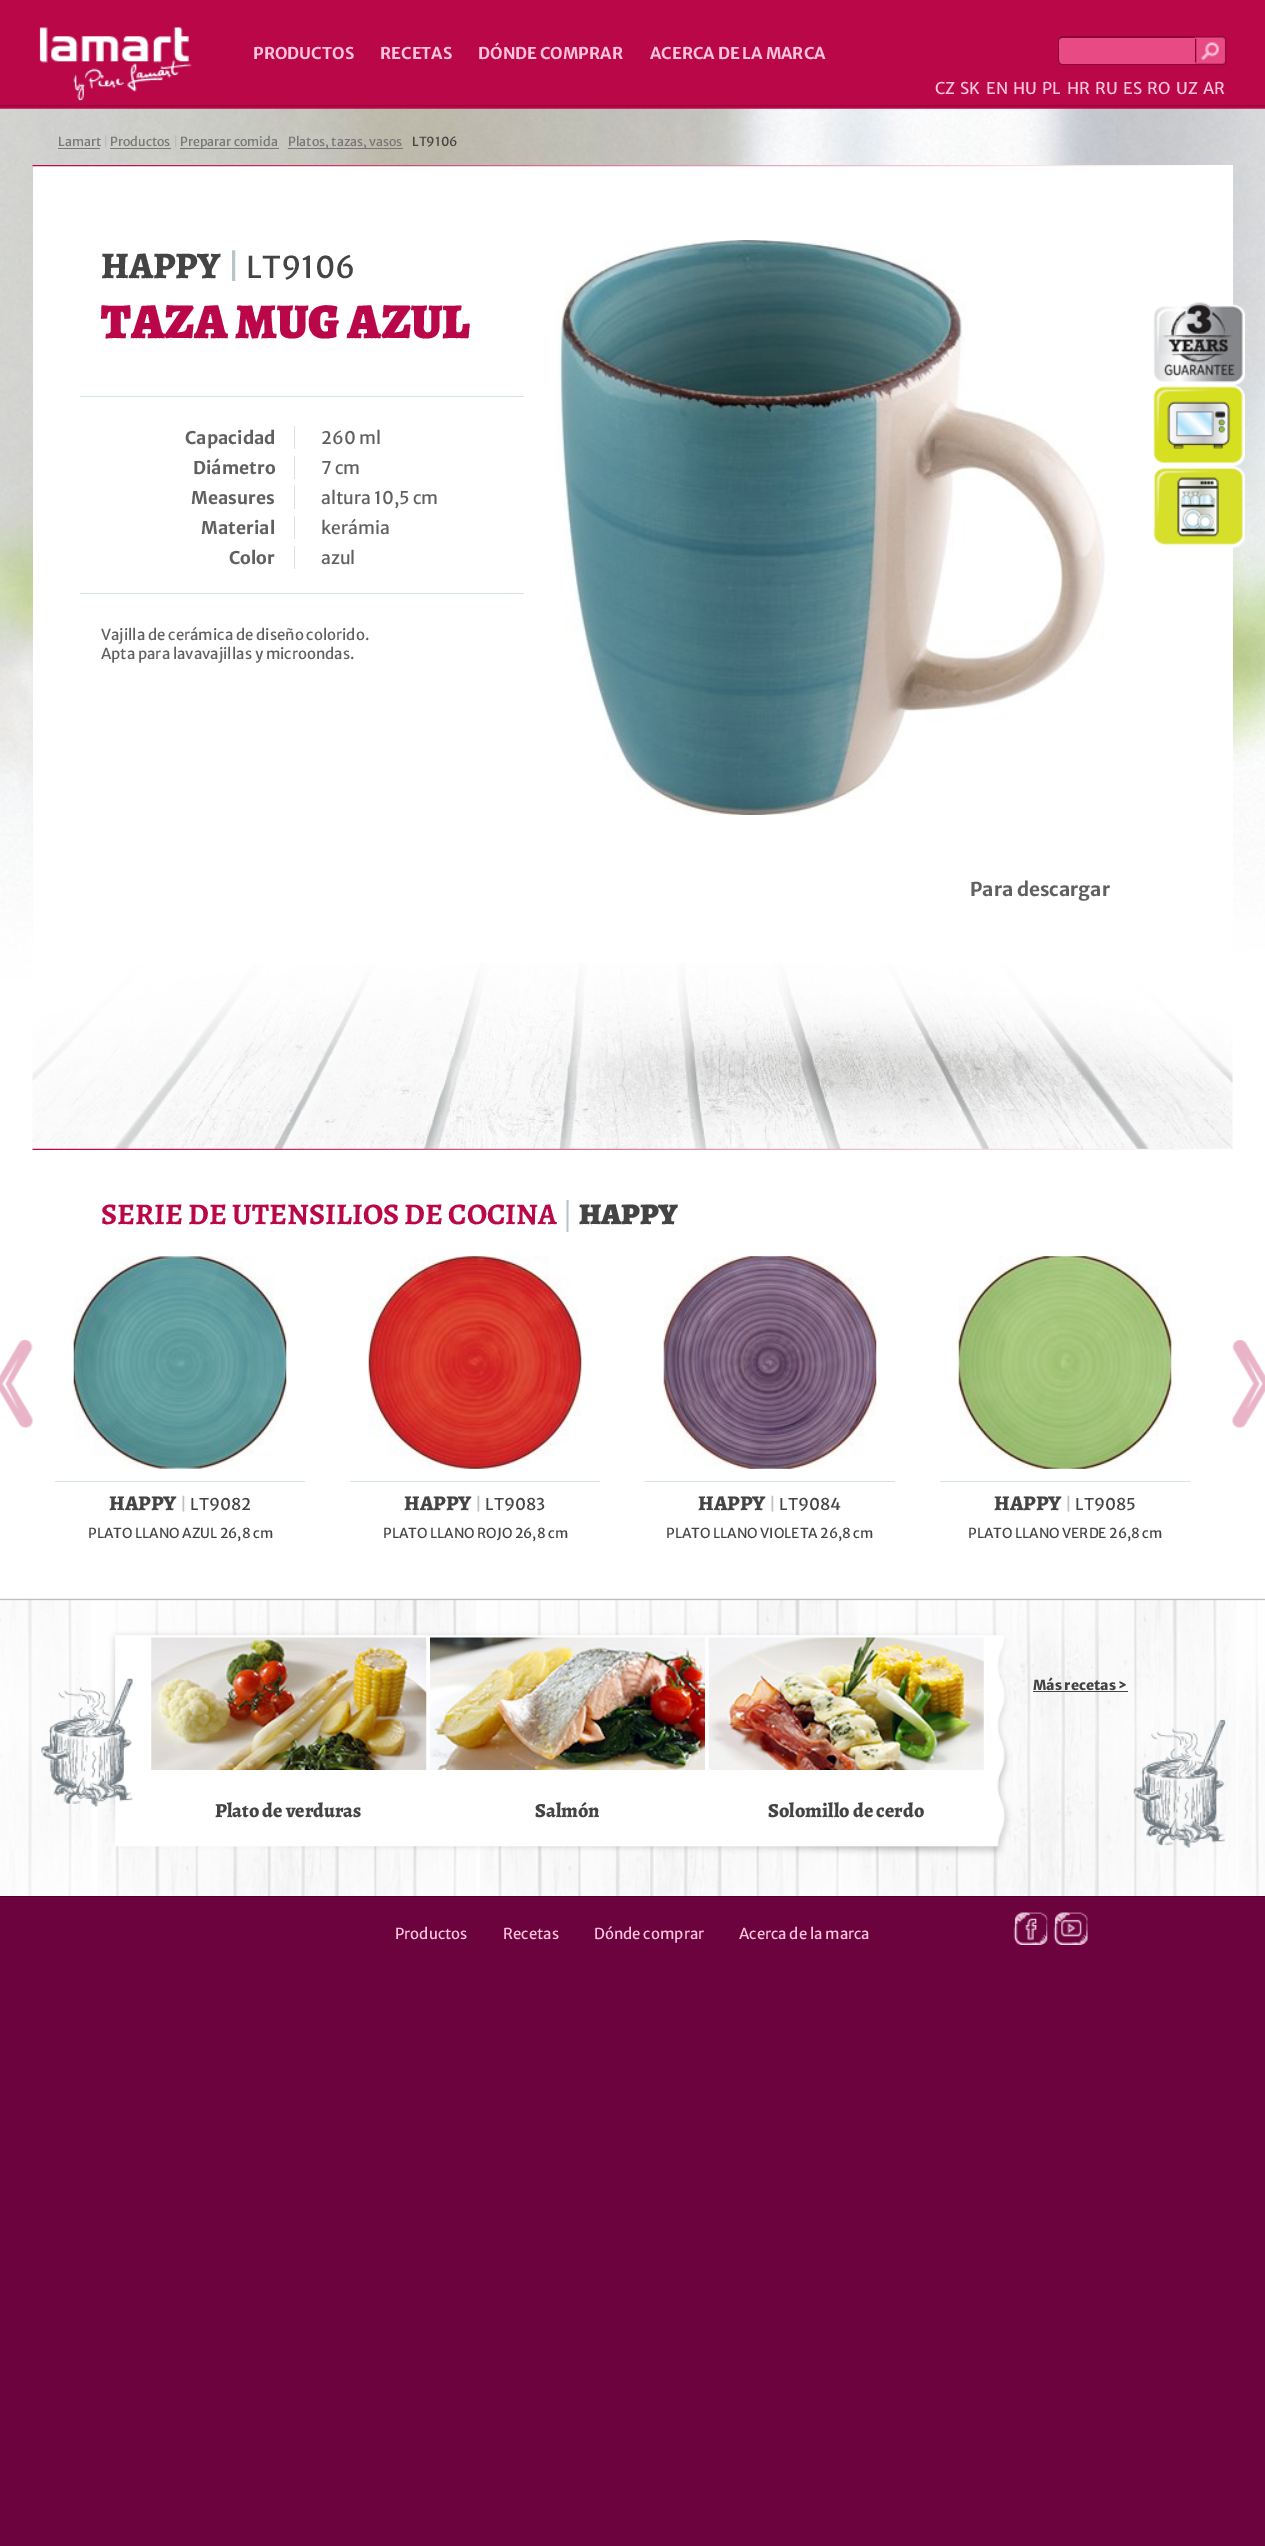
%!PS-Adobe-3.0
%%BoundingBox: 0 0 1265 2546
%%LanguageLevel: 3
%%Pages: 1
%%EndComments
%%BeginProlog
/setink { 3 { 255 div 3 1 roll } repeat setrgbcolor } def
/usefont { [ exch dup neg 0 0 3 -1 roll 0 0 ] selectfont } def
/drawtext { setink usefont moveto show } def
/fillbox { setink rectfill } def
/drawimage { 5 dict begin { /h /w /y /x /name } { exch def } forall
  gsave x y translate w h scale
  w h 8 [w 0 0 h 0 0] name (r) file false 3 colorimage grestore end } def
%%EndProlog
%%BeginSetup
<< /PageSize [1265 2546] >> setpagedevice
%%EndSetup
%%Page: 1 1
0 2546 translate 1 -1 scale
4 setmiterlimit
0 0 1265 2546 108 3 62 fillbox
0 0 1265 109 185 7 72 fillbox
(assets/img1.rgb) 0 105 1265 2 drawimage
(assets/img2.rgb) 39 27 153 74 drawimage
(PRODUCTOS) 253 59 /MerriweatherSans-Bold 16.25 255 195 220 drawtext
(RECETAS) 380 59 /MerriweatherSans-Bold 16.25 255 195 220 drawtext
(DÓNDE COMPRAR) 478 59 /MerriweatherSans-Bold 16.25 255 195 220 drawtext
(ACERCA DE LA MARCA) 650 59 /MerriweatherSans-Bold 16.25 255 195 220 drawtext
232 74 132 setink
1063 36 moveto 1195 36 lineto 1195 65 lineto 1063 65 lineto 1060 65 1058 63 1058 60 curveto 1058 41 lineto 1058 38 1060 36 1063 36 curveto closepath fill
141 5 55 setink
1062 36 moveto 1195 36 lineto 1195 65 lineto 1062 65 lineto 1060 65 1058 63 1058 60 curveto 1058 41 lineto 1058 38 1060 36 1062 36 curveto closepath 1062 38 moveto 1195 38 lineto 1195 64 lineto 1062 64 lineto 1060 64 1059 62 1059 60 curveto 1059 41 lineto 1059 39 1060 38 1062 38 curveto closepath eofill
(assets/img3.rgb) 1195 36 32 29 drawimage
(CZ) 935 94 /MerriweatherSans-Regular 16.25 255 195 220 drawtext
(SK) 960 94 /MerriweatherSans-Regular 16.25 255 195 220 drawtext
(EN) 986 94 /MerriweatherSans-Regular 16.25 255 195 220 drawtext
(HU) 1013 94 /MerriweatherSans-Regular 16.25 255 195 220 drawtext
(PL) 1042 94 /MerriweatherSans-Regular 16.25 255 195 220 drawtext
(HR) 1067 94 /MerriweatherSans-Regular 16.25 255 195 220 drawtext
(RU) 1095 94 /MerriweatherSans-Regular 16.25 255 195 220 drawtext
(ES) 1123 94 /MerriweatherSans-Regular 16.25 255 195 220 drawtext
(RO) 1147 94 /MerriweatherSans-Regular 16.25 255 195 220 drawtext
(UZ) 1176 94 /MerriweatherSans-Regular 16.25 255 195 220 drawtext
(AR) 1203 94 /MerriweatherSans-Regular 16.25 255 195 220 drawtext
0 989 1265 610 255 255 255 fillbox
(assets/img4.rgb) 0 108 1265 881 drawimage
(Lamart) 58 146 /MerriweatherSans-Regular 12.5 119 119 119 drawtext
58 148 42 1 119 119 119 fillbox
(|) 103 146 /MerriweatherSans-Regular 12.5 188 188 188 drawtext
(Productos) 110 146 /MerriweatherSans-Regular 12.5 119 119 119 drawtext
110 148 61 1 119 119 119 fillbox
(|) 173 146 /MerriweatherSans-Regular 12.5 188 188 188 drawtext
180 148 99 1 119 119 119 fillbox
(Preparar comida) 180 146 /MerriweatherSans-Regular 12.5 119 119 119 drawtext
288 148 115 1 119 119 119 fillbox
(Platos, tazas, vasos) 288 146 /MerriweatherSans-Regular 12.5 119 119 119 drawtext
(LT9106) 412 146 /MerriweatherSans-Regular 12.5 68 68 68 drawtext
33 165 1200 824 255 255 255 fillbox
(assets/img5.rgb) 32 165 1165 2 drawimage
(assets/img6.rgb) 32 963 1201 187 drawimage
(HAPPY) 101 278 /Alegreya-ExtraBold 37.5 68 68 68 drawtext
(|) 227 278 /MerriweatherSans-Regular 32 185 196 202 drawtext
(LT9106) 246 278 /MerriweatherSans-Regular 30 68 68 68 drawtext
(TAZA MUG AZUL) 101 338 /Alegreya-Black 50 186 7 73 drawtext
(assets/img7.rgb) 1153 302 92 83 drawimage
(assets/img8.rgb) 1153 385 92 82 drawimage
(assets/img9.rgb) 1153 466 92 82 drawimage
80 396 444 1 213 226 232 fillbox
80 593 444 1 213 226 232 fillbox
294 426 1 23 213 226 232 fillbox
(Capacidad) 185 444 /MerriweatherSans-Bold 17.5 96 96 96 drawtext
(260 ml) 321 444 /MerriweatherSans-Regular 17.5 96 96 96 drawtext
294 456 1 23 213 226 232 fillbox
(Diámetro) 193 474 /MerriweatherSans-Bold 17.5 96 96 96 drawtext
(7 cm) 321 474 /MerriweatherSans-Regular 17.5 96 96 96 drawtext
294 486 1 23 213 226 232 fillbox
(Measures) 191 504 /MerriweatherSans-Bold 17.5 96 96 96 drawtext
(altura 10,5 cm) 321 504 /MerriweatherSans-Regular 17.5 96 96 96 drawtext
294 516 1 23 213 226 232 fillbox
(Material) 201 534 /MerriweatherSans-Bold 17.5 96 96 96 drawtext
(kerámia) 321 534 /MerriweatherSans-Regular 17.5 96 96 96 drawtext
294 546 1 23 213 226 232 fillbox
(Color) 229 564 /MerriweatherSans-Bold 17.5 96 96 96 drawtext
(azul) 321 564 /MerriweatherSans-Regular 17.5 96 96 96 drawtext
(Vajilla de cerámica de diseño colorido.) 101 640 /MerriweatherSans-Regular 15 96 96 96 drawtext
(Apta para lavavajillas y microondas.) 101 659 /MerriweatherSans-Regular 15 96 96 96 drawtext
(assets/img10.rgb) 556 240 549 575 drawimage
(Para descargar) 970 896 /MerriweatherSans-Bold 19 96 96 96 drawtext
(SERIE DE UTENSILIOS DE COCINA) 101 1224 /Alegreya-Bold 30 186 7 73 drawtext
(|) 562 1224 /Alegreya-Regular 30 185 196 202 drawtext
(HAPPY) 579 1224 /Alegreya-Black 30 68 68 68 drawtext
(assets/img11.rgb) 0 1340 33 88 drawimage
(assets/img12.rgb) 1232 1340 33 88 drawimage
(assets/img13.rgb) 73 1256 214 213 drawimage
55 1481 250 1 213 226 234 fillbox
(HAPPY) 109 1510 /Alegreya-ExtraBold 21 68 68 68 drawtext
(|) 180 1510 /MerriweatherSans-Regular 16.25 185 196 202 drawtext
(LT9082) 190 1510 /MerriweatherSans-Regular 16.25 68 68 68 drawtext
(PLATO LLANO AZUL 26,8 cm) 88 1538 /MerriweatherSans-Regular 13.75 68 68 68 drawtext
(assets/img14.rgb) 368 1256 214 213 drawimage
350 1481 250 1 213 226 234 fillbox
(HAPPY) 404 1510 /Alegreya-ExtraBold 21 68 68 68 drawtext
(|) 475 1510 /MerriweatherSans-Regular 16.25 185 196 202 drawtext
(LT9083) 485 1510 /MerriweatherSans-Regular 16.25 68 68 68 drawtext
(PLATO LLANO ROJO 26,8 cm) 383 1538 /MerriweatherSans-Regular 13.75 68 68 68 drawtext
(assets/img15.rgb) 663 1256 214 213 drawimage
645 1481 250 1 213 226 234 fillbox
(HAPPY) 698 1510 /Alegreya-ExtraBold 21 68 68 68 drawtext
(|) 769 1510 /MerriweatherSans-Regular 16.25 185 196 202 drawtext
(LT9084) 779 1510 /MerriweatherSans-Regular 16.25 68 68 68 drawtext
(PLATO LLANO VIOLETA 26,8 cm) 666 1538 /MerriweatherSans-Regular 13.75 68 68 68 drawtext
(assets/img16.rgb) 958 1256 214 213 drawimage
940 1481 250 1 213 226 234 fillbox
(HAPPY) 994 1510 /Alegreya-ExtraBold 21 68 68 68 drawtext
(|) 1065 1510 /MerriweatherSans-Regular 16.25 185 196 202 drawtext
(LT9085) 1075 1510 /MerriweatherSans-Regular 16.25 68 68 68 drawtext
(PLATO LLANO VERDE 26,8 cm) 968 1538 /MerriweatherSans-Regular 13.75 68 68 68 drawtext
(assets/img17.rgb) 0 1598 1265 298 drawimage
(assets/img18.rgb) 41 1678 92 129 drawimage
(assets/img19.rgb) 1133 1719 93 129 drawimage
(Más recetas >) 1033 1690 /MerriweatherSans-ExtraBold 13.75 68 68 68 drawtext
1033 1691 95 1 68 68 68 fillbox
(assets/img20.rgb) 151 1637 276 133 drawimage
(Plato de verduras) 215 1817 /Alegreya-ExtraBold 20 68 68 68 drawtext
(assets/img21.rgb) 430 1637 275 133 drawimage
(Salmón) 535 1817 /Alegreya-ExtraBold 20 68 68 68 drawtext
(assets/img22.rgb) 708 1637 276 133 drawimage
(Solomillo de cerdo) 768 1817 /Alegreya-ExtraBold 20 68 68 68 drawtext
0 1896 1265 1 77 2 43 fillbox
(Productos) 395 1939 /MerriweatherSans-Regular 15 255 195 220 drawtext
(Recetas) 503 1939 /MerriweatherSans-Regular 15 255 195 220 drawtext
(Dónde comprar) 594 1939 /MerriweatherSans-Regular 15 255 195 220 drawtext
(Acerca de la marca) 739 1939 /MerriweatherSans-Regular 15 255 195 220 drawtext
(assets/img23.rgb) 1013 1912 35 33 drawimage
(assets/img24.rgb) 1047 1912 41 33 drawimage
showpage
%%EOF
